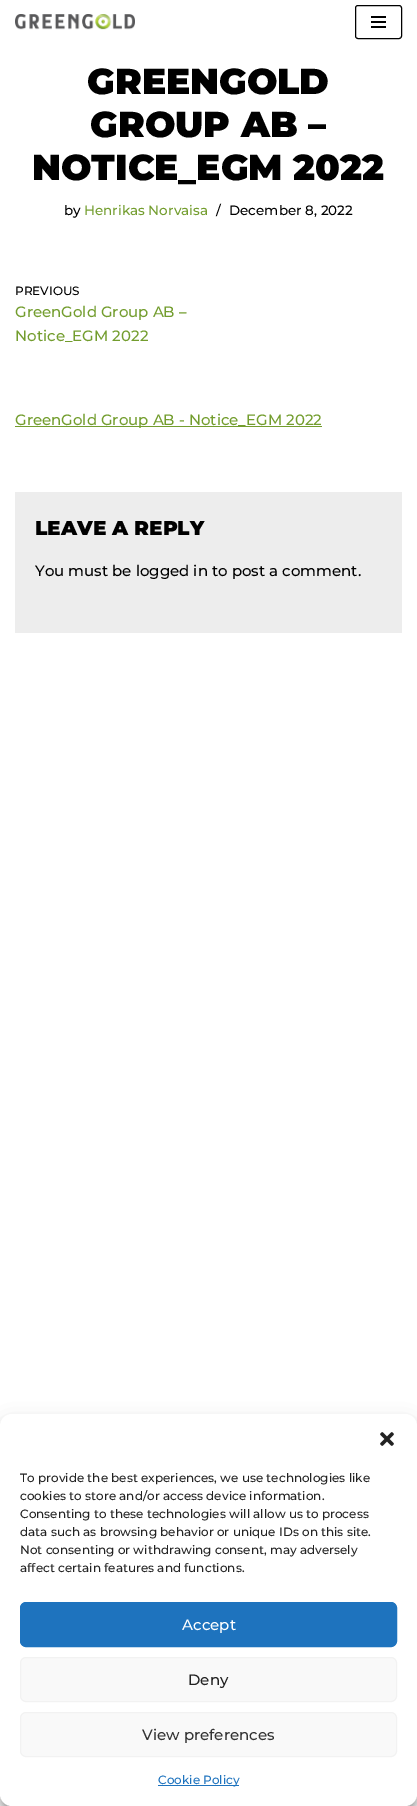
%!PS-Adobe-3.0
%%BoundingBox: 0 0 417 1806
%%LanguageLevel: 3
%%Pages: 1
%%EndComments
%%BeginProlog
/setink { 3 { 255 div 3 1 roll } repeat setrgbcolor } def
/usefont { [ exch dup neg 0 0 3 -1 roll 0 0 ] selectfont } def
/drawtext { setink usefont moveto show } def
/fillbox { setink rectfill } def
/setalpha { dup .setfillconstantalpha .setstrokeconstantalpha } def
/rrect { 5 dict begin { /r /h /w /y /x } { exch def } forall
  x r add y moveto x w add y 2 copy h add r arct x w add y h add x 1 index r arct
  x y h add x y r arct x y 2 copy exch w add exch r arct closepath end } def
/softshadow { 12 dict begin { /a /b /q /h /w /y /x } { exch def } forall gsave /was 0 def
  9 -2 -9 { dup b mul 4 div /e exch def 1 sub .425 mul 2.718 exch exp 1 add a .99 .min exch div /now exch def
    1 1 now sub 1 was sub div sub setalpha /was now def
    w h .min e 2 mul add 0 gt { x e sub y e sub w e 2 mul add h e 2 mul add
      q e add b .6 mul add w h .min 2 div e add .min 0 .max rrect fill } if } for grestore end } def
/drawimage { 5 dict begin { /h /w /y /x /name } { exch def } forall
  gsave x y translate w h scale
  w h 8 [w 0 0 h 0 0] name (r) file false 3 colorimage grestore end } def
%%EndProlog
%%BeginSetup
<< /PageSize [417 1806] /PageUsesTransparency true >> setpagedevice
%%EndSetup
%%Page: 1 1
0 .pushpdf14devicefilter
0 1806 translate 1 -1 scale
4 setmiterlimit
0 0 417 1806 255 255 255 fillbox
(assets/img1.rgb) 15 14 120 16 drawimage
0 0 0 setink
355.5 5.5 46 33 2.5 rrect stroke
371 16 15 2 0 0 0 fillbox
371 21 15 2 0 0 0 fillbox
371 26 15 2 0 0 0 fillbox
(GREENGOLD) 87 94 /Montserrat-Black 36 0 0 0 drawtext
(GROUP AB –) 90 137 /Montserrat-Black 36 0 0 0 drawtext
(NOTICE_EGM 2022) 32 180 /Montserrat-Black 36 0 0 0 drawtext
(by) 64 215 /Montserrat-Medium 13.5 0 0 0 drawtext
(Henrikas Norvaisa) 84 215 /Montserrat-Medium 13.5 115 157 46 drawtext
(/) 216 215 /Montserrat-Medium 13.5 0 0 0 drawtext
(December 8, 2022) 229 215 /Montserrat-Medium 13.5 0 0 0 drawtext
(PREVIOUS) 15 295 /Montserrat-Medium 12 0 0 0 drawtext
(GreenGold Group AB –) 15 317 /Montserrat-Medium 15 115 157 46 drawtext
(Notice_EGM 2022) 15 341 /Montserrat-Medium 15 115 157 46 drawtext
15 426 307 1 115 157 46 fillbox
(GreenGold Group AB - Notice_EGM 2022) 15 425 /Montserrat-Medium 15 115 157 46 drawtext
15 492 387 141 237 237 237 fillbox
(LEAVE A REPLY) 35 535 /Montserrat-Black 20 0 0 0 drawtext
(You must be logged in to post a comment.) 35 576 /Montserrat-Medium 15 0 0 0 drawtext
0 1420 417 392 12 3 0.23 softshadow
0 1424 417 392 12 10 0.19 softshadow
255 255 255 setink
0 1414 417 392 12 rrect fill
(assets/img2.rgb) 380 1432 14 14 drawimage
(To provide the best experiences, we use technologies like) 20 1482 /Montserrat-Medium 12 34 34 34 drawtext
(cookies to store and/or access device information.) 20 1500 /Montserrat-Medium 12 34 34 34 drawtext
(Consenting to these technologies will allow us to process) 20 1518 /Montserrat-Medium 12 34 34 34 drawtext
(data such as browsing behavior or unique IDs on this site.) 20 1536 /Montserrat-Medium 12 34 34 34 drawtext
(Not consenting or withdrawing consent, may adversely) 20 1554 /Montserrat-Medium 12 34 34 34 drawtext
(affect certain features and functions.) 20 1572 /Montserrat-Medium 12 34 34 34 drawtext
30 115 190 setink
20.5 1602.5 376 44 5.5 rrect gsave fill grestore
stroke
(Accept) 182 1630 /Montserrat-Medium 15 255 255 255 drawtext
249 249 249 setink
20.5 1657.5 376 44 5.5 rrect gsave fill grestore
242 242 242 setink
stroke
(Deny) 188 1685 /Montserrat-Medium 15 34 34 34 drawtext
249 249 249 setink
20.5 1712.5 376 44 5.5 rrect gsave fill grestore
242 242 242 setink
stroke
(View preferences) 142 1740 /Montserrat-Medium 15 51 51 51 drawtext
158 1785 81 1 30 115 190 fillbox
(Cookie Policy) 158 1784 /Montserrat-Medium 12 30 115 190 drawtext
.poppdf14devicefilter showpage
%%EOF
